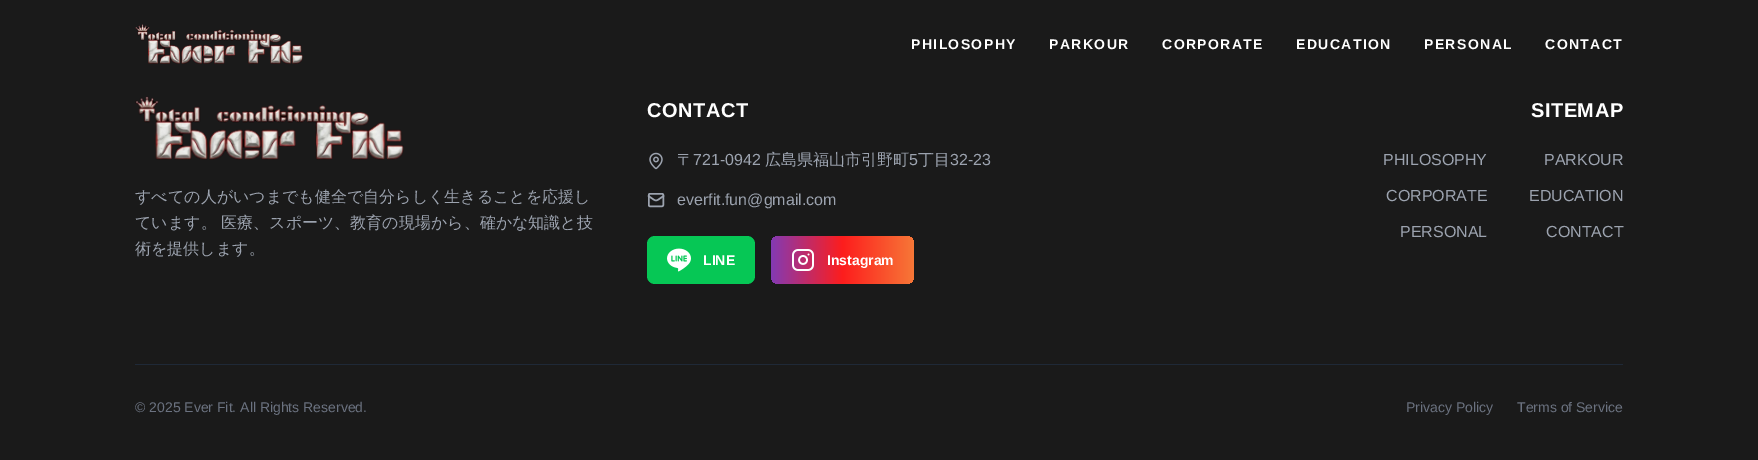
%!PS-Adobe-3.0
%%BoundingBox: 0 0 1758 460
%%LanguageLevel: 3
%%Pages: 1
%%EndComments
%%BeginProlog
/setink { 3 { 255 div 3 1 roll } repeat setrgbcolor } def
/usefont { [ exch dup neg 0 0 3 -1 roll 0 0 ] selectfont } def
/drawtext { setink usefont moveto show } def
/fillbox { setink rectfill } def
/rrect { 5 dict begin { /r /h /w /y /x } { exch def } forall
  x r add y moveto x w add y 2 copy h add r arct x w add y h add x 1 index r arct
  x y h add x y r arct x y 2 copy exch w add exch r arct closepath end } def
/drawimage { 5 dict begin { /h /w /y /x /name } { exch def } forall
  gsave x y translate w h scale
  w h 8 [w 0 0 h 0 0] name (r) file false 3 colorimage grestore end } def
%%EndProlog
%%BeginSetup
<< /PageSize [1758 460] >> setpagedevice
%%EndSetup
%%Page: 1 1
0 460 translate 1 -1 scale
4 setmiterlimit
0 0 1758 460 26 26 26 fillbox
(assets/img1.rgb) 135 24 168 40 drawimage
/LiberationSans-Bold 14 usefont
255 255 255 setink
911 49 moveto 1.4 0 (PHILOSOPHY) ashow
1049 49 moveto 1.4 0 (PARKOUR) ashow
1162 49 moveto 1.4 0 (CORPORATE) ashow
1296 49 moveto 1.4 0 (EDUCATION) ashow
1424 49 moveto 1.4 0 (PERSONAL) ashow
1545 49 moveto 1.4 0 (CONTACT) ashow
(assets/img2.rgb) 135 96 269 64 drawimage
(すべての人がいつまでも健全で自分らしく生きることを応援し) 135 202 /WenQuanYiZenHei-Medium 16 156 163 175 drawtext
(ています。 医療、スポーツ、教育の現場から、確かな知識と技) 135 228 /WenQuanYiZenHei-Medium 16 156 163 175 drawtext
(術を提供します。) 135 254 /WenQuanYiZenHei-Medium 16 156 163 175 drawtext
/LiberationSans-Bold 20 usefont
255 255 255 setink
647 117 moveto 0.5 0 (CONTACT) ashow
(assets/img3.rgb) 649 152 14 18 drawimage
(〒) 677 165 /WenQuanYiZenHei-Medium 16 156 163 175 drawtext
(721-0942) 693 165 /LiberationSans-Regular 16 156 163 175 drawtext
(広島県福山市引野町) 765 165 /WenQuanYiZenHei-Medium 16 156 163 175 drawtext
(5) 909 165 /LiberationSans-Regular 16 156 163 175 drawtext
(丁目) 918 165 /WenQuanYiZenHei-Medium 16 156 163 175 drawtext
(32-23) 950 165 /LiberationSans-Regular 16 156 163 175 drawtext
1.5 setlinewidth
1 setlinecap
1 setlinejoin
663.5 196 moveto 654.5 202 657.5 202 648.5 196 curveto stroke
0 setlinecap
0 setlinejoin
648.75 193.75 14.5 12.5 1.25 rrect stroke
(everfit.fun@gmail.com) 677 205 /LiberationSans-Regular 16 156 163 175 drawtext
6 199 85 setink
647 236 108 48 8 rrect fill
(assets/img4.rgb) 667 248 24 24 drawimage
(LINE) 703 265 /LiberationSans-Bold 14 255 255 255 drawtext
gsave 771 236 143 48 8 rrect clip newpath
<< /ShadingType 2 /ColorSpace /DeviceRGB /Coords [771 260 914 260] /Extend [true true] /Function << /FunctionType 3 /Domain [0 1] /Functions [<< /FunctionType 2 /Domain [0 1] /C0 [0.514 0.227 0.706] /C1 [0.992 0.114 0.114] /N 1 >> << /FunctionType 2 /Domain [0 1] /C0 [0.992 0.114 0.114] /C1 [0.969 0.467 0.216] /N 1 >>] /Bounds [0.5] /Encode [0 1 0 1] >> >> shfill grestore
(assets/img5.rgb) 792 249 22 22 drawimage
(Instagram) 827 265 /LiberationSans-Bold 14 255 255 255 drawtext
/LiberationSans-Bold 20 usefont
1531 117 moveto 0.5 0 (SITEMAP) ashow
(PHILOSOPHY) 1383 165 /LiberationSans-Regular 16 156 163 175 drawtext
(PARKOUR) 1544 165 /LiberationSans-Regular 16 156 163 175 drawtext
(CORPORATE) 1386 201 /LiberationSans-Regular 16 156 163 175 drawtext
(EDUCATION) 1529 201 /LiberationSans-Regular 16 156 163 175 drawtext
(PERSONAL) 1400 237 /LiberationSans-Regular 16 156 163 175 drawtext
(CONTACT) 1546 237 /LiberationSans-Regular 16 156 163 175 drawtext
135 364 1488 1 31 41 55 fillbox
(© 2025 Ever Fit. All Rights Reserved.) 135 412 /LiberationSans-Regular 14 107 114 128 drawtext
(Privacy Policy) 1406 412 /LiberationSans-Regular 14 107 114 128 drawtext
(Terms of Service) 1517 412 /LiberationSans-Regular 14 107 114 128 drawtext
showpage
%%EOF
